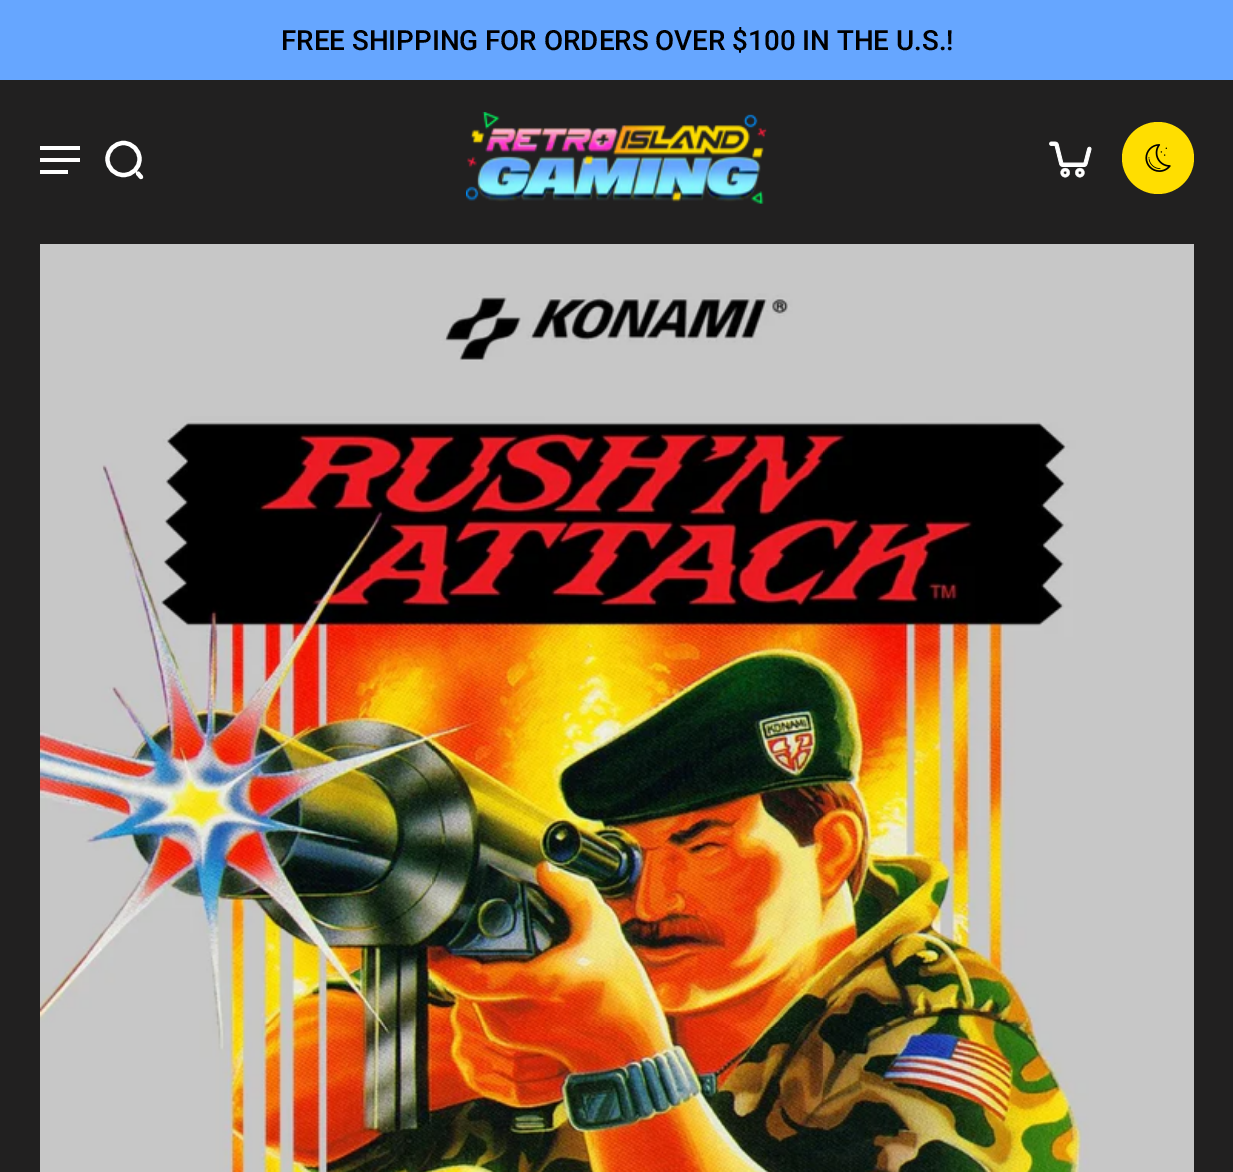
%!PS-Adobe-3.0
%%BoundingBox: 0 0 1233 1172
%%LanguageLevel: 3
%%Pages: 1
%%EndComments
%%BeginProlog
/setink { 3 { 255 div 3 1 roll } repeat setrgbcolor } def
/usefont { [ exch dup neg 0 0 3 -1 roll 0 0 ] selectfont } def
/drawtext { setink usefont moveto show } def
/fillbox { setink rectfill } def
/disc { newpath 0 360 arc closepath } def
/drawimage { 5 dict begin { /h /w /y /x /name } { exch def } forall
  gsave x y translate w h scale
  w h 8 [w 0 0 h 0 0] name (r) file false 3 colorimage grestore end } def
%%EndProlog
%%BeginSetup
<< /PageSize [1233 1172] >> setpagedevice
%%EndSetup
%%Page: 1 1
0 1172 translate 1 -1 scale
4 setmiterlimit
0 0 1233 1172 33 32 32 fillbox
0 0 1233 80 102 166 255 fillbox
(FREE SHIPPING FOR ORDERS OVER $100 IN THE U.S.!) 281 50 /Roboto-Medium 27.75 0 0 0 drawtext
(assets/img1.rgb) 466 112 301 92 drawimage
255 255 255 setink
40 146 moveto 40 150 lineto 80 150 lineto 80 146 lineto closepath 40 162 moveto 80 162 lineto 80 158 lineto 40 158 lineto closepath 40 174 moveto 68 174 lineto 68 170 lineto 40 170 lineto closepath eofill
4.2 setlinewidth
1 setlinecap
1 setlinejoin
123.5 175 moveto 132.5 175 139.5 168 139.5 159 curveto 139.5 150.5 132.5 143 123.5 143 curveto 114.5 143 107.5 150.5 107.5 159 curveto 107.5 168 114.5 175 123.5 175 curveto closepath 141 177 moveto 138 173.5 lineto stroke
(assets/img2.rgb) 1049 141 43 37 drawimage
255 222 0 setink
1158 158 36 disc fill
(assets/img3.rgb) 1145 144 26 28 drawimage
(assets/img4.rgb) 40 244 1154 928 drawimage
showpage
%%EOF
